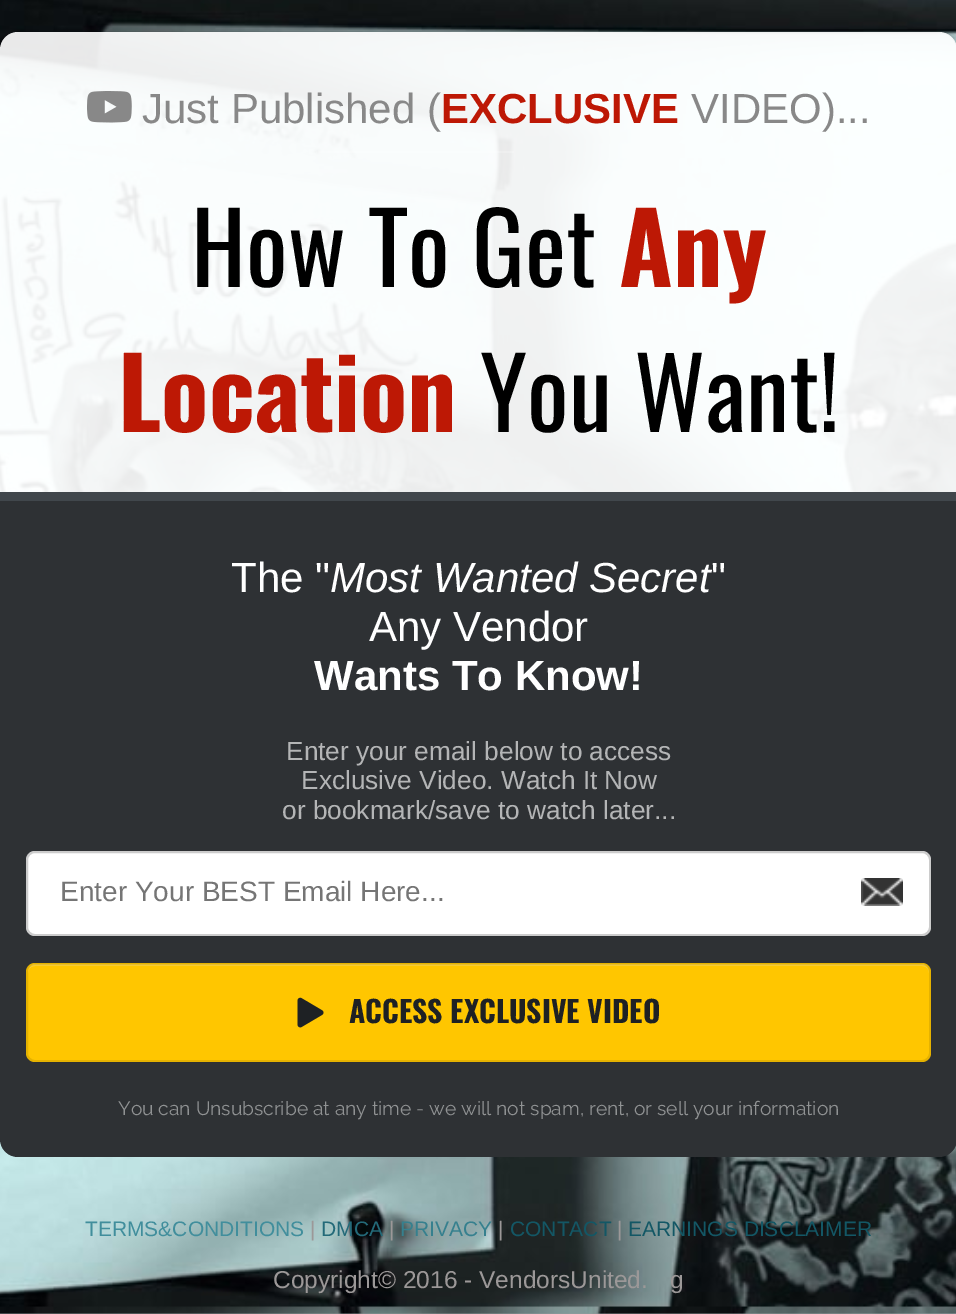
%!PS-Adobe-3.0
%%BoundingBox: 0 0 956 1314
%%LanguageLevel: 3
%%Pages: 1
%%EndComments
%%BeginProlog
/setink { 3 { 255 div 3 1 roll } repeat setrgbcolor } def
/usefont { [ exch dup neg 0 0 3 -1 roll 0 0 ] selectfont } def
/drawtext { setink usefont moveto show } def
/fillbox { setink rectfill } def
/setalpha { dup .setfillconstantalpha .setstrokeconstantalpha } def
/rrect { 5 dict begin { /r /h /w /y /x } { exch def } forall
  x r add y moveto x w add y 2 copy h add r arct x w add y h add x 1 index r arct
  x y h add x y r arct x y 2 copy exch w add exch r arct closepath end } def
/softshadow { 12 dict begin { /a /b /q /h /w /y /x } { exch def } forall gsave /was 0 def
  9 -2 -9 { dup b mul 4 div /e exch def 1 sub .425 mul 2.718 exch exp 1 add a .99 .min exch div /now exch def
    1 1 now sub 1 was sub div sub setalpha /was now def
    w h .min e 2 mul add 0 gt { x e sub y e sub w e 2 mul add h e 2 mul add
      q e add b .6 mul add w h .min 2 div e add .min 0 .max rrect fill } if } for grestore end } def
/drawimage { 5 dict begin { /h /w /y /x /name } { exch def } forall
  gsave x y translate w h scale
  w h 8 [w 0 0 h 0 0] name (r) file false 3 colorimage grestore end } def
%%EndProlog
%%BeginSetup
<< /PageSize [956 1314] /PageUsesTransparency true >> setpagedevice
%%EndSetup
%%Page: 1 1
0 .pushpdf14devicefilter
0 1314 translate 1 -1 scale
4 setmiterlimit
0 0 956 1314 255 255 255 fillbox
(assets/img1.rgb) 0 0 956 1314 drawimage
gsave
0 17 moveto 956 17 lineto 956 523 lineto 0 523 lineto closepath 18 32 moveto 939 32 lineto 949 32 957 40 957 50 curveto 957 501 lineto 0 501 lineto 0 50 lineto 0 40 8 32 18 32 curveto closepath eoclip newpath
0 0 0 setink
-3 32 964 476 21 4.5 0.3 softshadow
grestore
0.91 setalpha
18 32 moveto 939 32 lineto 949 32 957 40 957 50 curveto 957 501 lineto 0 501 lineto 0 50 lineto 0 40 8 32 18 32 curveto closepath fill
1 setalpha
0 492 956 9 65 71 76 fillbox
(assets/img2.rgb) 87 91 45 32 drawimage
(Just Published \() 142 123 /LiberationSans-Regular 42 136 136 136 drawtext
(EXCLUSIVE) 441 123 /LiberationSans-Bold 42 189 24 5 drawtext
(VIDEO\)...) 691 123 /LiberationSans-Regular 42 136 136 136 drawtext
0.2 setalpha
316 151 198 2 255 255 255 fillbox
1 setalpha
(How To Get) 191 287 /Oswald-Regular 98 0 0 0 drawtext
(Any) 619 287 /Oswald-Bold 98 189 24 5 drawtext
(Location) 118 432 /Oswald-Bold 98 189 24 5 drawtext
(You Want!) 480 432 /Oswald-Regular 98 0 0 0 drawtext
46 49 52 setink
0 501 moveto 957 501 lineto 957 1139 lineto 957 1149 949 1157 939 1157 curveto 18 1157 lineto 8 1157 0 1149 0 1139 curveto closepath fill
(The ") 231 592 /LiberationSans-Regular 42 255 255 255 drawtext
(Most Wanted Secret) 330 592 /LiberationSans-Italic 42 255 255 255 drawtext
(") 711 592 /LiberationSans-Regular 42 255 255 255 drawtext
(Any Vendor) 369 641 /LiberationSans-Regular 42 255 255 255 drawtext
(Wants To Know!) 314 690 /LiberationSans-Bold 42 255 255 255 drawtext
(Enter your email below to access) 286 760 /LiberationSans-Regular 26.25 180 181 182 drawtext
(Exclusive Video. Watch It Now) 301 789 /LiberationSans-Regular 26.25 180 181 182 drawtext
(or bookmark/save to watch later...) 282 819 /LiberationSans-Regular 26.25 180 181 182 drawtext
255 255 255 setink
26 851 905 85 9 rrect fill
(assets/img3.rgb) 861 878 42 28 drawimage
0.2 setalpha
0 0 0 setink
2 setlinewidth
27 852 903 83 8 rrect stroke
1 setalpha
(Enter Your BEST Email Here...) 60 901 /LiberationSans-Regular 28 117 117 117 drawtext
255 198 0 setink
26 963 905 99 9 rrect fill
255 209 51 setink
35 966 moveto 922 966 lineto 926 966 929 969 929 973 curveto 929 969 927 964 922 964 curveto 35 964 lineto 30 964 28 969 28 973 curveto 28 969 31 966 35 966 curveto closepath fill
0.1 setalpha
0 0 0 setink
27 964 903 97 8 rrect stroke
1 setalpha
(assets/img4.rgb) 297 997 27 31 drawimage
(ACCESS EXCLUSIVE VIDEO) 349 1023 /Oswald-Bold 29.75 30 33 36 drawtext
(You can Unsubscribe at any time - we will not spam, rent, or sell your information) 118 1115 /Raleway-Thin 19.25 144 146 147 drawtext
(TERMS&CONDITIONS) 85 1236 /LiberationSans-Regular 21 65 142 156 drawtext
(|) 310 1236 /LiberationSans-Regular 21 156 152 152 drawtext
(DMCA) 321 1236 /LiberationSans-Regular 21 35 106 121 drawtext
(|) 389 1236 /LiberationSans-Regular 21 156 152 152 drawtext
(PRIVACY) 400 1236 /LiberationSans-Regular 21 54 128 142 drawtext
(|) 498 1236 /LiberationSans-Regular 21 156 152 152 drawtext
(CONTACT) 510 1236 /LiberationSans-Regular 21 19 87 101 drawtext
(|) 617 1236 /LiberationSans-Regular 21 156 152 152 drawtext
(EARNINGS DISCLAIMER) 628 1236 /LiberationSans-Regular 21 19 87 101 drawtext
(Copyright© 2016 - VendorsUnited.) 273 1288 /LiberationSans-Regular 24.5 156 152 152 drawtext
(g) 670 1288 /LiberationSans-Regular 24.5 156 152 152 drawtext
.poppdf14devicefilter showpage
%%EOF
